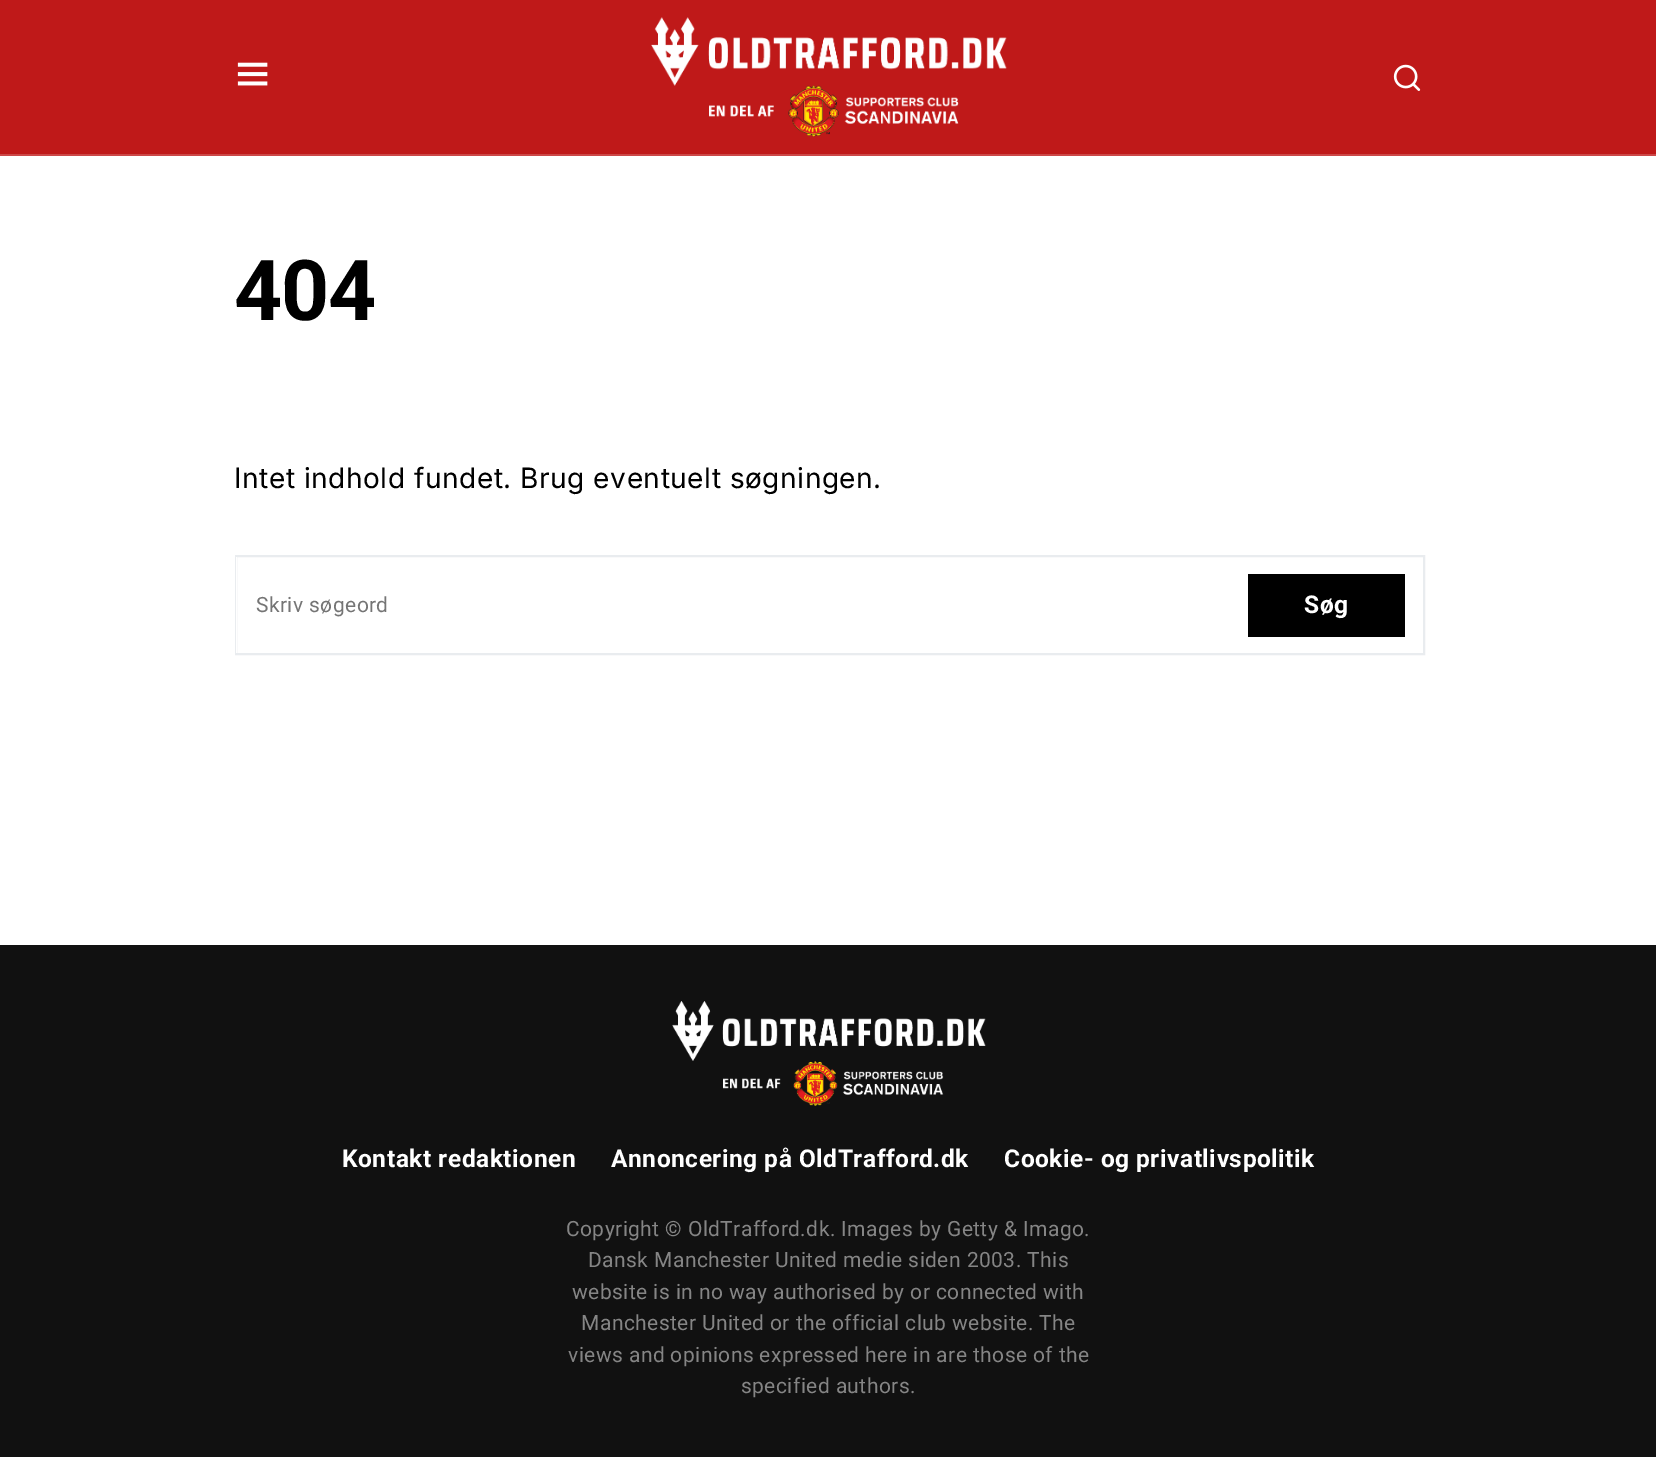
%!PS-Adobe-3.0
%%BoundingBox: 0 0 1656 1457
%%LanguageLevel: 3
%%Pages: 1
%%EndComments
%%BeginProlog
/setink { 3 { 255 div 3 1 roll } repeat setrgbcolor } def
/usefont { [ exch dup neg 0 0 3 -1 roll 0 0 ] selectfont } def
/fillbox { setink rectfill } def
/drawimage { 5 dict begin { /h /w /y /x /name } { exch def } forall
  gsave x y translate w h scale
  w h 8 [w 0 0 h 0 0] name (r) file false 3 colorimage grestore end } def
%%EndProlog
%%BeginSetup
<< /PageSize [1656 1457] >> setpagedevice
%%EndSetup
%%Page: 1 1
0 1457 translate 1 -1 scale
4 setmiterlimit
0 0 1656 1457 255 255 255 fillbox
0 0 1656 154 191 25 25 fillbox
0 154 1656 2 204 71 71 fillbox
(assets/img1.rgb) 237 62 31 24 drawimage
(assets/img2.rgb) 651 17 356 120 drawimage
(assets/img3.rgb) 1393 64 28 27 drawimage
/Roboto-Bold 84 usefont
0 0 0 setink
234 320 moveto -1 0 (404) ashow
/Inter-Regular 28 usefont
234 488 moveto 0.55 0 (Intet indhold fundet. Brug eventuelt søgningen.) ashow
233 236 239 setink
2 setlinewidth
236 556 1188 98 rectstroke
236 557 1 96 255 255 255 fillbox
/Roboto-Regular 21 usefont
117 117 117 setink
256 612 moveto 0.42 0 (Skriv søgeord) ashow
1248 574 157 63 0 0 0 fillbox
/Roboto-Bold 24.5 usefont
255 255 255 setink
1304 613 moveto 0.5 0 (Søg) ashow
0 945 1656 512 17 17 17 fillbox
(assets/img4.rgb) 672 1001 314 105 drawimage
255 255 255 setink
342 1167 moveto 0.55 0 (Kontakt redaktionen) ashow
611 1167 moveto 0.55 0 (Annoncering på OldTrafford.dk) ashow
1004 1167 moveto 0.55 0 (Cookie- og privatlivspolitik) ashow
/Roboto-Regular 21 usefont
133 133 133 setink
566 1236 moveto 0.42 0 (Copyright © OldTrafford.dk. Images by Getty & Imago.) ashow
588 1267 moveto 0.42 0 (Dansk Manchester United medie siden 2003. This) ashow
572 1299 moveto 0.42 0 (website is in no way authorised by or connected with) ashow
581 1330 moveto 0.42 0 (Manchester United or the official club website. The) ashow
568 1362 moveto 0.42 0 (views and opinions expressed here in are those of the) ashow
741 1393 moveto 0.42 0 (specified authors.) ashow
showpage
%%EOF
